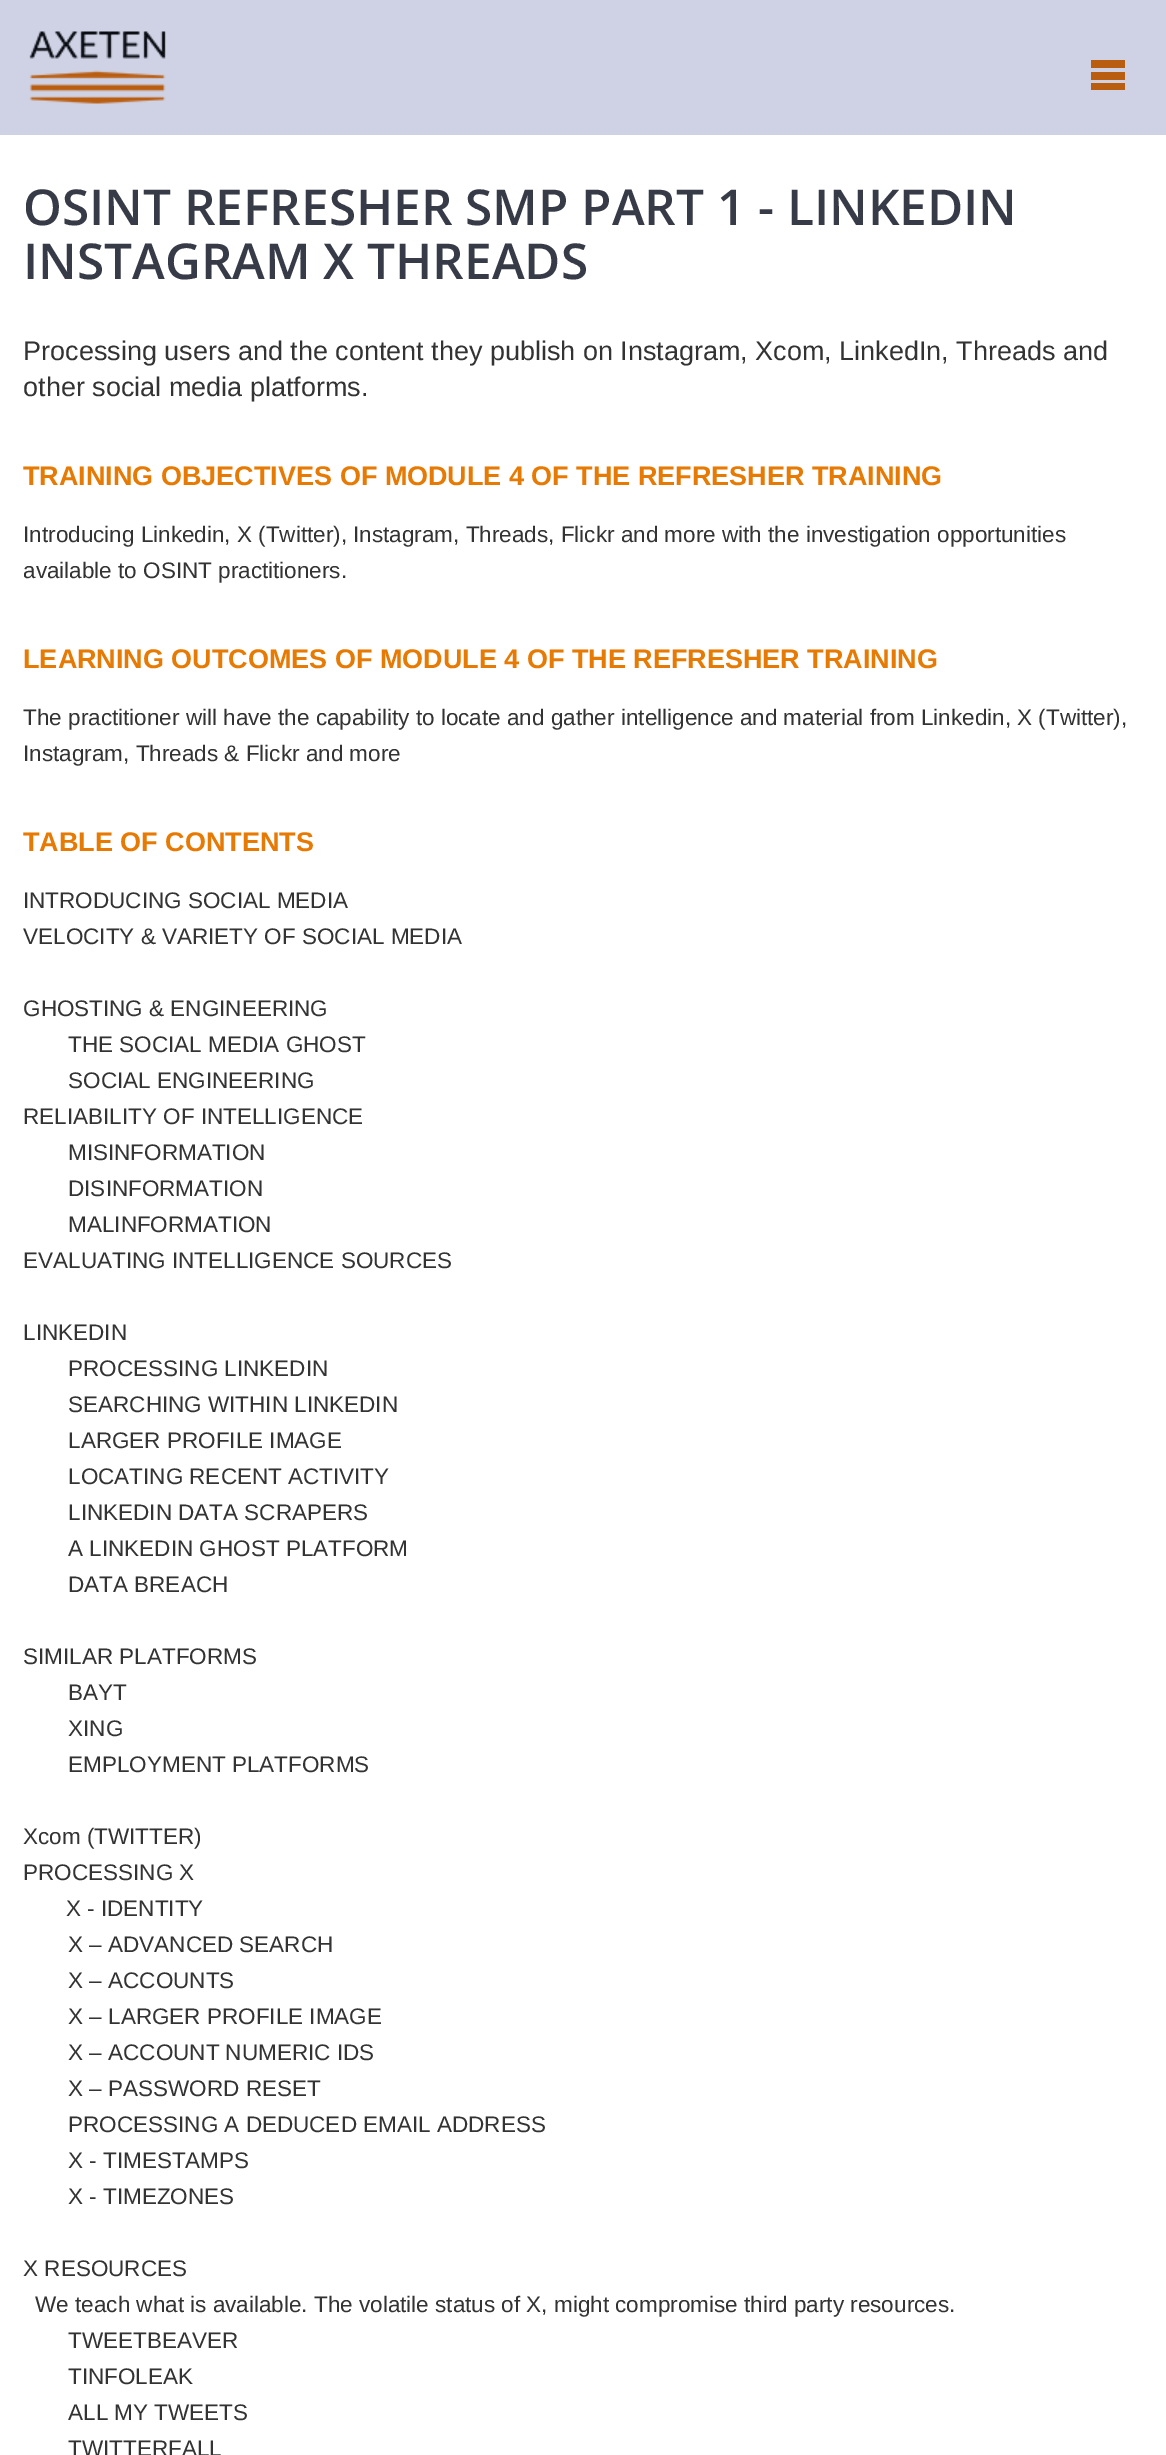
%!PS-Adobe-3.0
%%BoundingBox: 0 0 1166 2455
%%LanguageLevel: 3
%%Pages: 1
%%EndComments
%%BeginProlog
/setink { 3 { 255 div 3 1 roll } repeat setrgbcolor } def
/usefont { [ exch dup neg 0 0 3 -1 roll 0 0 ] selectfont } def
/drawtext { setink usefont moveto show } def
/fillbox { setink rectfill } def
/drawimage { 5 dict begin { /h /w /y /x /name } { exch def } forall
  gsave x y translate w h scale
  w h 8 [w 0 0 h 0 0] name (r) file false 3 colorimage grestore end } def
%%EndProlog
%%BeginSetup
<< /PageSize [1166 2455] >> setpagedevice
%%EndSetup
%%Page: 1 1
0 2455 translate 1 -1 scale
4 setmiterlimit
0 0 1166 2455 207 210 229 fillbox
(assets/img1.rgb) 29 31 137 73 drawimage
1091 83 34 7 185 94 17 fillbox
1091 72 34 8 185 94 17 fillbox
1091 60 34 8 185 94 17 fillbox
0 135 1166 2320 255 255 255 fillbox
(OSINT REFRESHER SMP PART 1 - LINKEDIN) 23 225 /OpenSans-SemiBold 49.5 55 59 71 drawtext
(INSTAGRAM X THREADS) 23 279 /OpenSans-SemiBold 49.5 55 59 71 drawtext
(Processing users and the content they publish on Instagram, Xcom, LinkedIn, Threads and) 23 360 /LiberationSans-Regular 27 51 51 51 drawtext
(other social media platforms.) 23 396 /LiberationSans-Regular 27 51 51 51 drawtext
(TRAINING OBJECTIVES OF MODULE 4 OF THE REFRESHER TRAINING) 23 485 /LiberationSans-Bold 27 231 122 3 drawtext
(Introducing Linkedin, X \(Twitter\), Instagram, Threads, Flickr and more with the investigation opportunities) 23 542 /LiberationSans-Regular 22.5 51 51 51 drawtext
(available to OSINT practitioners.) 23 578 /LiberationSans-Regular 22.5 51 51 51 drawtext
(LEARNING OUTCOMES OF MODULE 4 OF THE REFRESHER TRAINING) 23 668 /LiberationSans-Bold 27 231 122 3 drawtext
(The practitioner will have the capability to locate and gather intelligence and material from Linkedin, X \(Twitter\),) 23 725 /LiberationSans-Regular 22.5 51 51 51 drawtext
(Instagram, Threads & Flickr and more) 23 761 /LiberationSans-Regular 22.5 51 51 51 drawtext
(TABLE OF CONTENTS) 23 851 /LiberationSans-Bold 27 231 122 3 drawtext
(INTRODUCING SOCIAL MEDIA) 23 908 /LiberationSans-Regular 22.5 51 51 51 drawtext
(VELOCITY & VARIETY OF SOCIAL MEDIA) 23 944 /LiberationSans-Regular 22.5 51 51 51 drawtext
(GHOSTING & ENGINEERING) 23 1016 /LiberationSans-Regular 22.5 51 51 51 drawtext
(THE SOCIAL MEDIA GHOST) 68 1052 /LiberationSans-Regular 22.5 51 51 51 drawtext
(SOCIAL ENGINEERING) 68 1088 /LiberationSans-Regular 22.5 51 51 51 drawtext
(RELIABILITY OF INTELLIGENCE) 23 1124 /LiberationSans-Regular 22.5 51 51 51 drawtext
(MISINFORMATION) 68 1160 /LiberationSans-Regular 22.5 51 51 51 drawtext
(DISINFORMATION) 68 1196 /LiberationSans-Regular 22.5 51 51 51 drawtext
(MALINFORMATION) 68 1232 /LiberationSans-Regular 22.5 51 51 51 drawtext
(EVALUATING INTELLIGENCE SOURCES) 23 1268 /LiberationSans-Regular 22.5 51 51 51 drawtext
(LINKEDIN) 23 1340 /LiberationSans-Regular 22.5 51 51 51 drawtext
(PROCESSING LINKEDIN) 68 1376 /LiberationSans-Regular 22.5 51 51 51 drawtext
(SEARCHING WITHIN LINKEDIN) 68 1412 /LiberationSans-Regular 22.5 51 51 51 drawtext
(LARGER PROFILE IMAGE) 68 1448 /LiberationSans-Regular 22.5 51 51 51 drawtext
(LOCATING RECENT ACTIVITY) 68 1484 /LiberationSans-Regular 22.5 51 51 51 drawtext
(LINKEDIN DATA SCRAPERS) 68 1520 /LiberationSans-Regular 22.5 51 51 51 drawtext
(A LINKEDIN GHOST PLATFORM) 68 1556 /LiberationSans-Regular 22.5 51 51 51 drawtext
(DATA BREACH) 68 1592 /LiberationSans-Regular 22.5 51 51 51 drawtext
(SIMILAR PLATFORMS) 23 1664 /LiberationSans-Regular 22.5 51 51 51 drawtext
(BAYT) 68 1700 /LiberationSans-Regular 22.5 51 51 51 drawtext
(XING) 68 1736 /LiberationSans-Regular 22.5 51 51 51 drawtext
(EMPLOYMENT PLATFORMS) 68 1772 /LiberationSans-Regular 22.5 51 51 51 drawtext
(Xcom \(TWITTER\)) 23 1844 /LiberationSans-Regular 22.5 51 51 51 drawtext
(PROCESSING X) 23 1880 /LiberationSans-Regular 22.5 51 51 51 drawtext
(X - IDENTITY) 66 1916 /LiberationSans-Regular 22.5 51 51 51 drawtext
(X – ADVANCED SEARCH) 68 1952 /LiberationSans-Regular 22.5 51 51 51 drawtext
(X – ACCOUNTS) 68 1988 /LiberationSans-Regular 22.5 51 51 51 drawtext
(X – LARGER PROFILE IMAGE) 68 2024 /LiberationSans-Regular 22.5 51 51 51 drawtext
(X – ACCOUNT NUMERIC IDS) 68 2060 /LiberationSans-Regular 22.5 51 51 51 drawtext
(X – PASSWORD RESET) 68 2096 /LiberationSans-Regular 22.5 51 51 51 drawtext
(PROCESSING A DEDUCED EMAIL ADDRESS) 68 2132 /LiberationSans-Regular 22.5 51 51 51 drawtext
(X - TIMESTAMPS) 68 2168 /LiberationSans-Regular 22.5 51 51 51 drawtext
(X - TIMEZONES) 68 2204 /LiberationSans-Regular 22.5 51 51 51 drawtext
(X RESOURCES) 23 2276 /LiberationSans-Regular 22.5 51 51 51 drawtext
(We teach what is available. The volatile status of X, might compromise third party resources.) 35 2312 /LiberationSans-Regular 22.5 51 51 51 drawtext
(TWEETBEAVER) 68 2348 /LiberationSans-Regular 22.5 51 51 51 drawtext
(TINFOLEAK) 68 2384 /LiberationSans-Regular 22.5 51 51 51 drawtext
(ALL MY TWEETS) 68 2420 /LiberationSans-Regular 22.5 51 51 51 drawtext
(TWITTERFALL) 68 2456 /LiberationSans-Regular 22.5 51 51 51 drawtext
showpage
%%EOF
